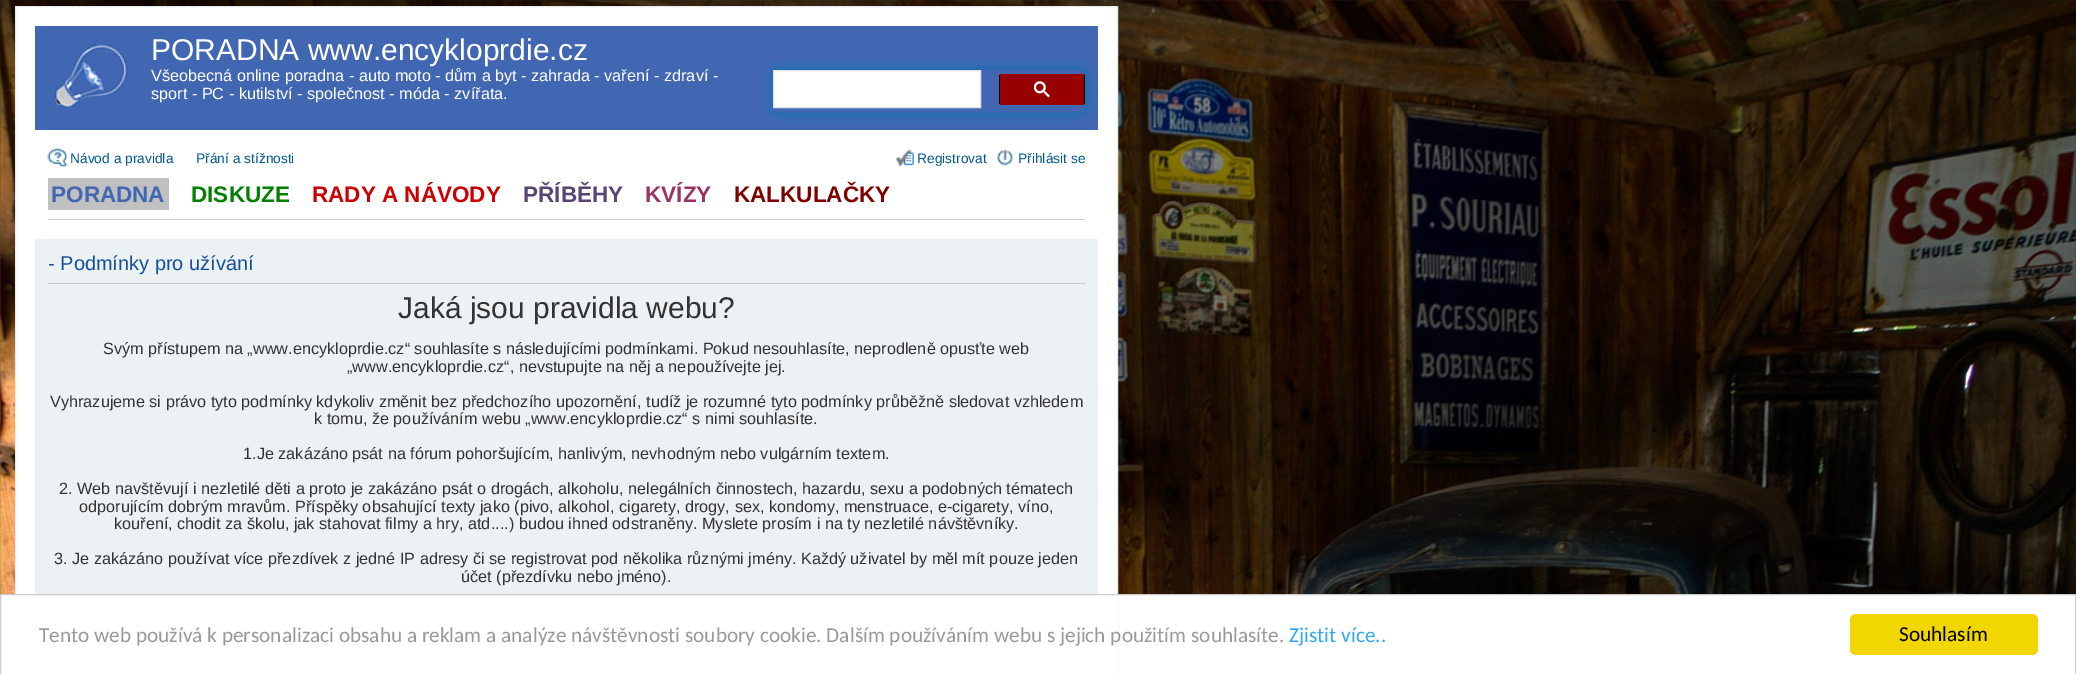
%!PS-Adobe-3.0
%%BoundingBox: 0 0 2076 674
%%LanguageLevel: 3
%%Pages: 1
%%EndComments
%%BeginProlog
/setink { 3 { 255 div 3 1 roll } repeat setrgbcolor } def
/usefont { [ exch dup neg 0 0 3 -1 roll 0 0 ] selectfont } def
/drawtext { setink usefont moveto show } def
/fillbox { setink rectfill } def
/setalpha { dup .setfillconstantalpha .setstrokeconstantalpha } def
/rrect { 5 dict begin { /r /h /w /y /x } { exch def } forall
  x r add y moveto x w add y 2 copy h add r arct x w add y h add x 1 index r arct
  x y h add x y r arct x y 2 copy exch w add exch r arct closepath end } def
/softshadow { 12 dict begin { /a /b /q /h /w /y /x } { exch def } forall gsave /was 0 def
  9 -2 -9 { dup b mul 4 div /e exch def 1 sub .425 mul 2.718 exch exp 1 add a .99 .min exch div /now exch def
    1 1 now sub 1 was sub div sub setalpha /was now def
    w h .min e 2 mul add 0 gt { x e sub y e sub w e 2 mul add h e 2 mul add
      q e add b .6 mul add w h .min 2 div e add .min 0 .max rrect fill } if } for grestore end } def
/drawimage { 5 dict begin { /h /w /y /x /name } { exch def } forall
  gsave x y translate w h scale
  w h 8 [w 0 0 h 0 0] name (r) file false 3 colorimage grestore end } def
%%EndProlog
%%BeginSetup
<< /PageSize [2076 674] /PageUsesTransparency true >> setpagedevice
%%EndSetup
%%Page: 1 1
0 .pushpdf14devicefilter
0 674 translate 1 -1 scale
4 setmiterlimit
0 0 2076 674 255 255 255 fillbox
(assets/img1.rgb) 0 0 2076 594 drawimage
16 7 1101 587 255 255 255 fillbox
230 233 237 setink
15.5 6.5 1102 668 rectstroke
35 26 1063 104 66 103 178 fillbox
(assets/img2.rgb) 54 45 74 64 drawimage
(PORADNA www.encykloprdie.cz) 151 60 /LiberationSans-Regular 30 255 255 255 drawtext
(Všeobecná online poradna - auto moto - dům a byt - zahrada - vaření - zdraví -) 151 81 /LiberationSans-Regular 16.25 255 255 255 drawtext
(sport - PC - kutilství - společnost - móda - zvířata.) 151 99 /LiberationSans-Regular 16.25 255 255 255 drawtext
gsave
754 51 moveto 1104 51 lineto 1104 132 lineto 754 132 lineto closepath 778 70 moveto 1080 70 lineto 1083 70 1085 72 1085 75 curveto 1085 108 lineto 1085 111 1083 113 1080 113 curveto 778 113 lineto 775 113 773 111 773 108 curveto 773 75 lineto 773 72 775 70 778 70 curveto closepath eoclip newpath
0 117 176 setink
773 70 312 43 5 6 1 softshadow
grestore
773.5 70.5 moveto 980.5 70.5 lineto 980.5 107.5 lineto 773.5 107.5 lineto closepath gsave fill grestore
223 225 229 setink
stroke
153 0 0 setink
999 74 86 31 2.5 rrect fill
1084 75 1 29 0 0 0 fillbox
999 75 1 29 0 0 0 fillbox
(assets/img3.rgb) 1034 81 16 17 drawimage
(assets/img4.rgb) 47 148 21 19 drawimage
(Návod a pravidla) 70 163 /LiberationSans-Regular 13.75 0 88 147 drawtext
(Přání a stížnosti) 196 163 /LiberationSans-Regular 13.75 0 88 147 drawtext
(assets/img5.rgb) 896 149 18 18 drawimage
(Registrovat) 917 163 /LiberationSans-Regular 13.75 0 88 147 drawtext
(assets/img6.rgb) 997 149 16 17 drawimage
(Přihlásit se) 1018 163 /LiberationSans-Regular 13.75 0 88 147 drawtext
48 178 121 32 192 192 192 fillbox
(PORADNA) 51 202 /LiberationSans-Bold 22.5 66 103 178 drawtext
(DISKUZE) 191 202 /LiberationSans-Bold 22.5 0 128 0 drawtext
(RADY A NÁVODY) 312 202 /LiberationSans-Bold 22.5 204 0 0 drawtext
(PŘÍBĚHY) 523 202 /LiberationSans-Bold 22.5 89 69 113 drawtext
(KVÍZY) 645 202 /LiberationSans-Bold 22.5 153 51 102 drawtext
(KALKULAČKY) 734 202 /LiberationSans-Bold 22.5 128 0 0 drawtext
48 219 1037 1 204 204 204 fillbox
35 239 1063 355 236 241 243 fillbox
48 283 1037 1 204 204 204 fillbox
(- Podmínky pro užívání) 48 270 /LiberationSans-Regular 20 17 80 152 drawtext
(Jaká jsou pravidla webu?) 398 318 /LiberationSans-Regular 30 51 51 51 drawtext
(Svým přístupem na „www.encykloprdie.cz“ souhlasíte s následujícími podmínkami. Pokud nesouhlasíte, neprodleně opusťte web) 103 354 /LiberationSans-Regular 16.25 51 51 51 drawtext
(„www.encykloprdie.cz“, nevstupujte na něj a nepoužívejte jej.) 347 372 /LiberationSans-Regular 16.25 51 51 51 drawtext
(Vyhrazujeme si právo tyto podmínky kdykoliv změnit bez předchozího upozornění, tudíž je rozumné tyto podmínky průběžně sledovat vzhledem) 50 407 /LiberationSans-Regular 16.25 51 51 51 drawtext
(k tomu, že používáním webu „www.encykloprdie.cz“ s nimi souhlasíte.) 314 424 /LiberationSans-Regular 16.25 51 51 51 drawtext
(1.Je zakázáno psát na fórum pohoršujícím, hanlivým, nevhodným nebo vulgárním textem.) 243 459 /LiberationSans-Regular 16.25 51 51 51 drawtext
(2. Web navštěvují i nezletilé děti a proto je zakázáno psát o drogách, alkoholu, nelegálních činnostech, hazardu, sexu a podobných tématech) 59 494 /LiberationSans-Regular 16.25 51 51 51 drawtext
(odporujícím dobrým mravům. Příspěky obsahující texty jako \(pivo, alkohol, cigarety, drogy, sex, kondomy, menstruace, e-cigarety, víno,) 79 512 /LiberationSans-Regular 16.25 51 51 51 drawtext
(kouření, chodit za školu, jak stahovat filmy a hry, atd....\) budou ihned odstraněny. Myslete prosím i na ty nezletilé návštěvníky.) 114 529 /LiberationSans-Regular 16.25 51 51 51 drawtext
(3. Je zakázáno používat více přezdívek z jedné IP adresy či se registrovat pod několika různými jmény. Každý uživatel by měl mít pouze jeden) 54 564 /LiberationSans-Regular 16.25 51 51 51 drawtext
(účet \(přezdívku nebo jméno\).) 461 582 /LiberationSans-Regular 16.25 51 51 51 drawtext
15 595 1103 79 255 255 255 fillbox
204 204 204 setink
0.5 594.5 2075 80 rectstroke
(Tento web používá k personalizaci obsahu a reklam a analýze návštěvnosti soubory cookie. Dalším používáním webu s jejich použitím souhlasíte.) 39 642 /Carlito-Regular 21.25 153 153 153 drawtext
(Zjistit více..) 1289 642 /Carlito-Regular 21.25 49 168 240 drawtext
241 214 0 setink
1850 614 188 41 6 rrect fill
(Souhlasím) 1899 641 /Carlito-Regular 21.25 0 0 0 drawtext
.poppdf14devicefilter showpage
%%EOF
